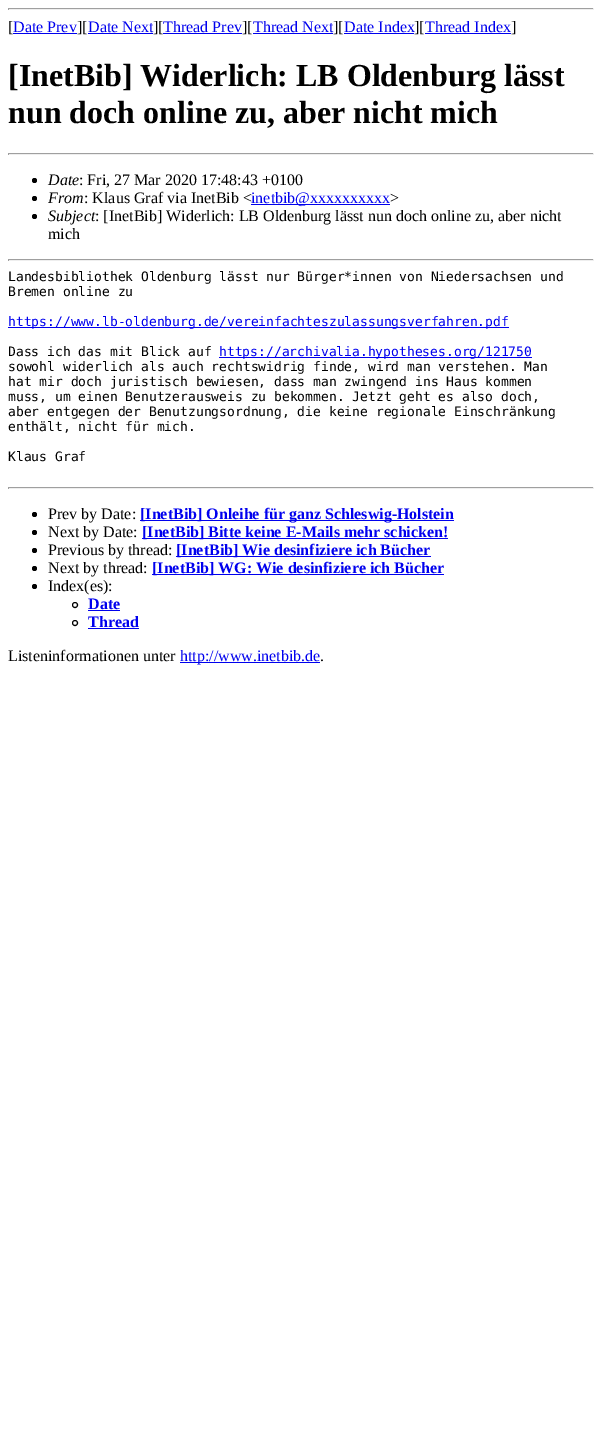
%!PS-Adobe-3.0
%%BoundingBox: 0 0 602 1444
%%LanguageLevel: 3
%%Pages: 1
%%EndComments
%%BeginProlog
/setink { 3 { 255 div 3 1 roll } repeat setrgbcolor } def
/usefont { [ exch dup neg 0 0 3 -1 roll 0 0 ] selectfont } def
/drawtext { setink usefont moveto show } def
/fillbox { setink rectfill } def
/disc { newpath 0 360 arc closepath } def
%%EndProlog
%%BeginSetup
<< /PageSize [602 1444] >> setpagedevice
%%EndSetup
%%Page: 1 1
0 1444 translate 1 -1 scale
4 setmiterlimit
0 0 602 1444 255 255 255 fillbox
8 8 586 1 159 159 159 fillbox
593 8 1 2 238 238 238 fillbox
8 9 586 1 238 238 238 fillbox
8 8 1 2 159 159 159 fillbox
([) 8 32 /LiberationSerif-Regular 16 0 0 0 drawtext
(Date Prev) 13 32 /LiberationSerif-Regular 16 0 0 238 drawtext
13 33 64 1 0 0 238 fillbox
(][) 77 32 /LiberationSerif-Regular 16 0 0 0 drawtext
(Date Next) 88 32 /LiberationSerif-Regular 16 0 0 238 drawtext
88 33 65 1 0 0 238 fillbox
(][) 153 32 /LiberationSerif-Regular 16 0 0 0 drawtext
(Thread Prev) 163 32 /LiberationSerif-Regular 16 0 0 238 drawtext
163 33 79 1 0 0 238 fillbox
(][) 242 32 /LiberationSerif-Regular 16 0 0 0 drawtext
(Thread Next) 253 32 /LiberationSerif-Regular 16 0 0 238 drawtext
253 33 80 1 0 0 238 fillbox
(][) 333 32 /LiberationSerif-Regular 16 0 0 0 drawtext
(Date Index) 344 32 /LiberationSerif-Regular 16 0 0 238 drawtext
344 33 70 1 0 0 238 fillbox
(][) 414 32 /LiberationSerif-Regular 16 0 0 0 drawtext
(Thread Index) 425 32 /LiberationSerif-Regular 16 0 0 238 drawtext
425 33 86 1 0 0 238 fillbox
(]) 511 32 /LiberationSerif-Regular 16 0 0 0 drawtext
([InetBib] Widerlich: LB Oldenburg lässt) 8 86 /LiberationSerif-Bold 32 0 0 0 drawtext
(nun doch online zu, aber nicht mich) 8 123 /LiberationSerif-Bold 32 0 0 0 drawtext
8 153 586 1 159 159 159 fillbox
593 153 1 2 238 238 238 fillbox
8 154 586 1 238 238 238 fillbox
8 153 1 2 159 159 159 fillbox
0 0 0 setink
34.5 180.5 2.5 disc fill
(Date) 48 185 /LiberationSerif-Italic 16 0 0 0 drawtext
(: Fri, 27 Mar 2020 17:48:43 +0100) 79 185 /LiberationSerif-Regular 16 0 0 0 drawtext
34.5 198.5 2.5 disc fill
(From) 48 203 /LiberationSerif-Italic 16 0 0 0 drawtext
(: Klaus Graf via InetBib <) 84 203 /LiberationSerif-Regular 16 0 0 0 drawtext
251 204 139 1 0 0 238 fillbox
(inetbib@xxxxxxxxxx) 251 203 /LiberationSerif-Regular 16 0 0 238 drawtext
(>) 390 203 /LiberationSerif-Regular 16 0 0 0 drawtext
34.5 216.5 2.5 disc fill
(Subject) 48 221 /LiberationSerif-Italic 16 0 0 0 drawtext
(: [InetBib] Widerlich: LB Oldenburg lässt nun doch online zu, aber nicht) 95 221 /LiberationSerif-Regular 16 0 0 0 drawtext
(mich) 48 239 /LiberationSerif-Regular 16 0 0 0 drawtext
8 259 586 1 159 159 159 fillbox
593 259 1 2 238 238 238 fillbox
8 260 586 1 238 238 238 fillbox
8 259 1 2 159 159 159 fillbox
(Landesbibliothek Oldenburg lässt nur Bürger*innen von Niedersachsen und) 8 281 /DejaVuSansMono-Regular 13 0 0 0 drawtext
(Bremen online zu) 8 296 /DejaVuSansMono-Regular 13 0 0 0 drawtext
8 327 501 1 0 0 238 fillbox
(https://www.lb-oldenburg.de/vereinfachteszulassungsverfahren.pdf) 8 326 /DejaVuSansMono-Regular 13 0 0 238 drawtext
(Dass ich das mit Blick auf) 8 356 /DejaVuSansMono-Regular 13 0 0 0 drawtext
219 357 313 1 0 0 238 fillbox
(https://archivalia.hypotheses.org/121750) 219 356 /DejaVuSansMono-Regular 13 0 0 238 drawtext
(sowohl widerlich als auch rechtswidrig finde, wird man verstehen. Man) 8 371 /DejaVuSansMono-Regular 13 0 0 0 drawtext
(hat mir doch juristisch bewiesen, dass man zwingend ins Haus kommen) 8 386 /DejaVuSansMono-Regular 13 0 0 0 drawtext
(muss, um einen Benutzerausweis zu bekommen. Jetzt geht es also doch,) 8 401 /DejaVuSansMono-Regular 13 0 0 0 drawtext
(aber entgegen der Benutzungsordnung, die keine regionale Einschränkung) 8 416 /DejaVuSansMono-Regular 13 0 0 0 drawtext
(enthält, nicht für mich.) 8 431 /DejaVuSansMono-Regular 13 0 0 0 drawtext
(Klaus Graf) 8 461 /DejaVuSansMono-Regular 13 0 0 0 drawtext
8 487 586 1 159 159 159 fillbox
593 487 1 2 238 238 238 fillbox
8 488 586 1 238 238 238 fillbox
8 487 1 2 159 159 159 fillbox
0 0 0 setink
34.5 514.5 2.5 disc fill
(Prev by Date:) 48 519 /LiberationSerif-Regular 16 0 0 0 drawtext
140 520 314 1 0 0 238 fillbox
([InetBib] Onleihe für ganz Schleswig-Holstein) 140 519 /LiberationSerif-Bold 16 0 0 238 drawtext
0 0 0 setink
34.5 532.5 2.5 disc fill
(Next by Date:) 48 537 /LiberationSerif-Regular 16 0 0 0 drawtext
142 538 306 1 0 0 238 fillbox
([InetBib] Bitte keine E-Mails mehr schicken!) 142 537 /LiberationSerif-Bold 16 0 0 238 drawtext
0 0 0 setink
34.5 550.5 2.5 disc fill
(Previous by thread:) 48 555 /LiberationSerif-Regular 16 0 0 0 drawtext
176 556 255 1 0 0 238 fillbox
([InetBib] Wie desinfiziere ich Bücher) 176 555 /LiberationSerif-Bold 16 0 0 238 drawtext
0 0 0 setink
34.5 568.5 2.5 disc fill
(Next by thread:) 48 573 /LiberationSerif-Regular 16 0 0 0 drawtext
152 574 292 1 0 0 238 fillbox
([InetBib] WG: Wie desinfiziere ich Bücher) 152 573 /LiberationSerif-Bold 16 0 0 238 drawtext
0 0 0 setink
34.5 586.5 2.5 disc fill
(Index\(es\):) 48 591 /LiberationSerif-Regular 16 0 0 0 drawtext
75 605 2.5 disc stroke
(Date) 88 609 /LiberationSerif-Bold 16 0 0 238 drawtext
88 610 32 1 0 0 238 fillbox
0 0 0 setink
75 623 2.5 disc stroke
(Thread) 88 627 /LiberationSerif-Bold 16 0 0 238 drawtext
88 628 51 1 0 0 238 fillbox
(Listeninformationen unter) 8 661 /LiberationSerif-Regular 16 0 0 0 drawtext
180 662 140 1 0 0 238 fillbox
(http://www.inetbib.de) 180 661 /LiberationSerif-Regular 16 0 0 238 drawtext
(.) 320 661 /LiberationSerif-Regular 16 0 0 0 drawtext
showpage
%%EOF
